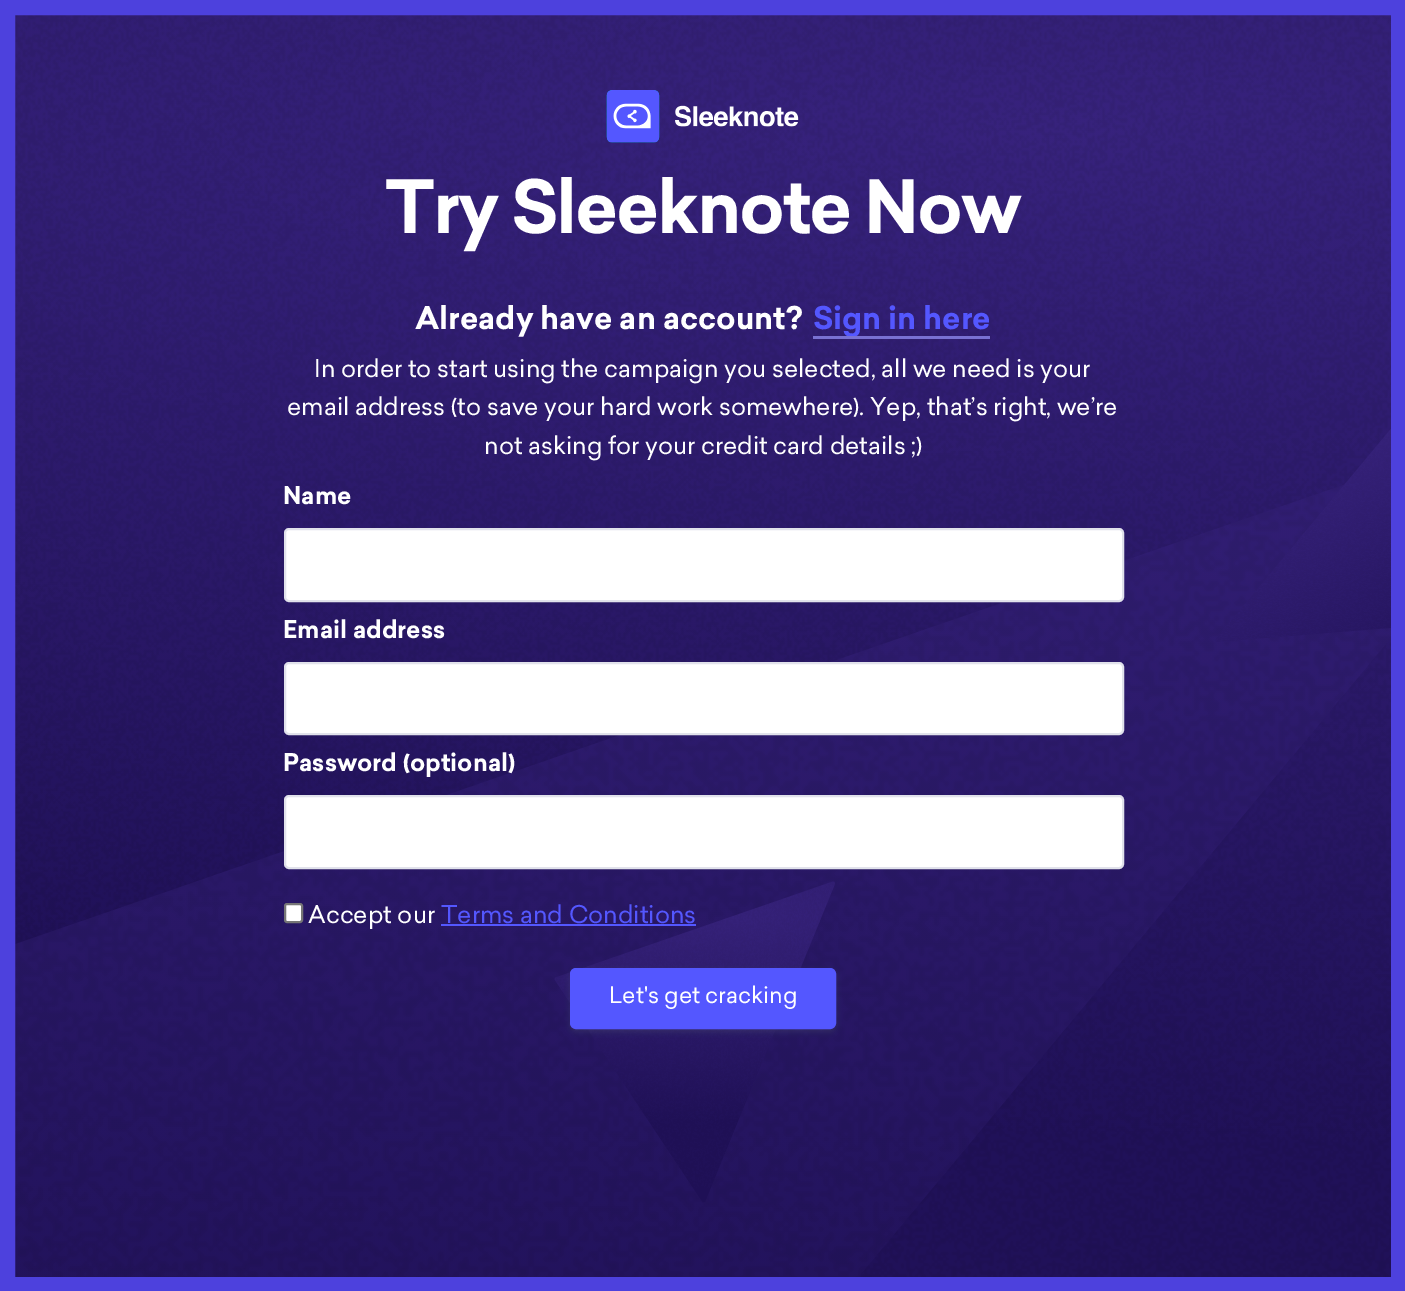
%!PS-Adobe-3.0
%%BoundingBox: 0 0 1405 1291
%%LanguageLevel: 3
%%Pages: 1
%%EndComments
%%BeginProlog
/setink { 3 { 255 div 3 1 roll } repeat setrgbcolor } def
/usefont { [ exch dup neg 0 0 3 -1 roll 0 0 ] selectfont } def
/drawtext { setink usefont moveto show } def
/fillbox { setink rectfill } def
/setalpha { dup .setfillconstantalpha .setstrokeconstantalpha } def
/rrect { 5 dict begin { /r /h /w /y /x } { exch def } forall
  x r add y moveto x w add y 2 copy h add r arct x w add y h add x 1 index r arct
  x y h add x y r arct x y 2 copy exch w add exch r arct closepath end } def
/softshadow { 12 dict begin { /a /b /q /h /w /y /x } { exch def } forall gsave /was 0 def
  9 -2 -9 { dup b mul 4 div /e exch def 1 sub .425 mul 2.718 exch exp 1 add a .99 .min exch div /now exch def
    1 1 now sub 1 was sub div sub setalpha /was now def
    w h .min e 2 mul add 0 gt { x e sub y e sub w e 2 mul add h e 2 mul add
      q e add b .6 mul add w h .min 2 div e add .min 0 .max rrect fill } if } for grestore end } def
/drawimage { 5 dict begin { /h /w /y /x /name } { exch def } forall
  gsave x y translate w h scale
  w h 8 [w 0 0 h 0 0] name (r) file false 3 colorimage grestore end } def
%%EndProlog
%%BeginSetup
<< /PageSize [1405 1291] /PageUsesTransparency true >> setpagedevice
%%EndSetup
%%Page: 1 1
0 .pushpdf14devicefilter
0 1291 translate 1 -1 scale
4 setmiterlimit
0 0 1405 1291 255 255 255 fillbox
(assets/img1.rgb) 15 15 1376 1262 drawimage
77 65 221 setink
15 setlinewidth
7.5 7.5 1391 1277 rectstroke
(assets/img2.rgb) 606 90 193 53 drawimage
/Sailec-Bold 72 usefont
255 255 255 setink
385 233 moveto -2.2 0 (Try Sleeknote Now) ashow
(Already have an account?) 415 329 /Sailec-Bold 30.8 255 255 255 drawtext
(Sign in here) 813 329 /Sailec-Bold 30.8 84 87 255 drawtext
813 336 177 3 121 113 210 fillbox
(In order to start using the campaign you selected, all we need is your) 314 377 /Sailec-Regular 24 255 255 255 drawtext
(email address \(to save your hard work somewhere\). Yep, that’s right, we’re) 287 415 /Sailec-Regular 24 255 255 255 drawtext
(not asking for your credit card details ;\)) 484 454 /Sailec-Regular 24 255 255 255 drawtext
(Name) 283 504 /Sailec-Bold 24 255 255 255 drawtext
285 529 838 72 4 rrect gsave fill grestore
225 226 235 setink
2 setlinewidth
stroke
(Email address) 283 638 /Sailec-Bold 24 255 255 255 drawtext
285 663 838 71 4 rrect gsave fill grestore
225 226 235 setink
stroke
(Password \(optional\)) 283 771 /Sailec-Bold 24 255 255 255 drawtext
285 796 838 72 4 rrect gsave fill grestore
225 226 235 setink
stroke
255 255 255 setink
285 904 17 18 2 rrect gsave fill grestore
118 118 118 setink
stroke
(Accept our) 308 923 /Sailec-Regular 24 255 255 255 drawtext
(Terms and Conditions) 441 923 /Sailec-Regular 24 84 87 255 drawtext
441 924 255 2 84 87 255 fillbox
100 105 124 setink
570 971 266 61 6 3 0.24 softshadow
84 87 255 setink
571 969 264 59 5 rrect gsave fill grestore
stroke
(Let's get cracking) 609 1003 /Sailec-Regular 22.5 255 255 255 drawtext
.poppdf14devicefilter showpage
%%EOF
